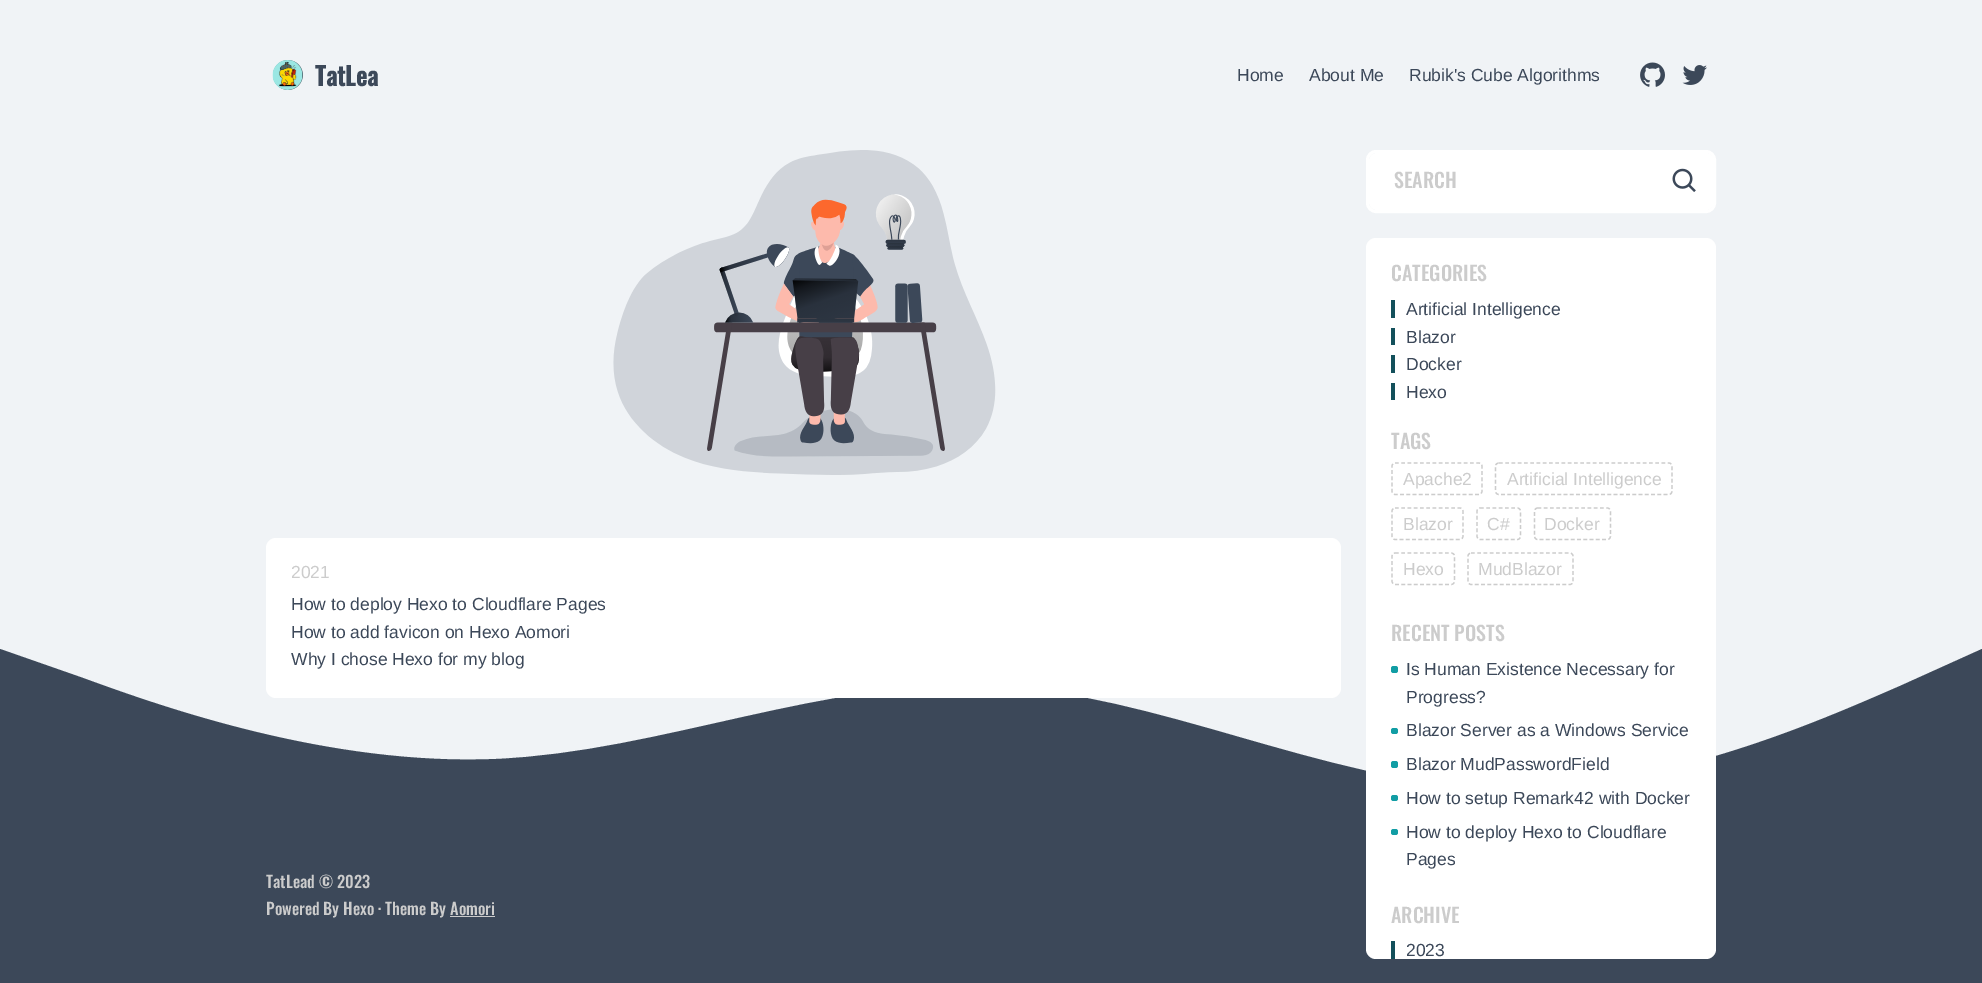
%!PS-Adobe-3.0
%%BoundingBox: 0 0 1982 983
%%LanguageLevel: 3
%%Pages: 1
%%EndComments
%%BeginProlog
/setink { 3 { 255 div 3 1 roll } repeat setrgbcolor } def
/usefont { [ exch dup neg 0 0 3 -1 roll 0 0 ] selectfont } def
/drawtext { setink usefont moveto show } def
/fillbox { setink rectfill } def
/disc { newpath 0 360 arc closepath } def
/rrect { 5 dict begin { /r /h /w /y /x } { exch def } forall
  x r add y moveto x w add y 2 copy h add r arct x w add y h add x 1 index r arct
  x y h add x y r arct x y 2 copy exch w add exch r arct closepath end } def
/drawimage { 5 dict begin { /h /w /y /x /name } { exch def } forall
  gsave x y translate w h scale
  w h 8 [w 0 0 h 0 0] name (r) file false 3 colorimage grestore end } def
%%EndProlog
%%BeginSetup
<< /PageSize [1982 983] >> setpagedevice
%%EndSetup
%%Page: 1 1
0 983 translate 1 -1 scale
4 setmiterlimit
0 0 1982 983 240 243 246 fillbox
69 90 100 setink
288 75 15 disc fill
(assets/img1.rgb) 272 60 31 30 drawimage
(TatLea) 315 86 /Oswald-Bold 25 60 72 89 drawtext
(Home) 1237 81 /LiberationSans-Regular 17.5 60 72 89 drawtext
(About Me) 1309 81 /LiberationSans-Regular 17.5 60 72 89 drawtext
(Rubik's Cube Algorithms) 1409 81 /LiberationSans-Regular 17.5 60 72 89 drawtext
(assets/img2.rgb) 1640 62 25 25 drawimage
(assets/img3.rgb) 1682 65 25 20 drawimage
(assets/img4.rgb) 613 150 383 325 drawimage
0 649 moveto 83 678 lineto 165 708 330 766 496 759 curveto 661 752 826 678 991 686 curveto 1156 693 1322 781 1487 788 curveto 1652 796 1817 722 1900 686 curveto 1982 649 lineto 1982 869 lineto 0 869 lineto closepath fill
255 255 255 setink
266 538 1075 160 10 rrect fill
(2021) 291 578 /LiberationSans-Regular 17.5 204 204 204 drawtext
(How to deploy Hexo to Cloudflare Pages) 291 610 /LiberationSans-Regular 17.5 60 72 89 drawtext
(How to add favicon on Hexo Aomori) 291 638 /LiberationSans-Regular 17.5 60 72 89 drawtext
(Why I chose Hexo for my blog) 291 665 /LiberationSans-Regular 17.5 60 72 89 drawtext
255 255 255 setink
3 setlinewidth
1367.5 151.5 347 60 8.5 rrect stroke
1369 153 345 57 8 rrect fill
(SEARCH) 1394 188 /Oswald-Medium 20 204 204 204 drawtext
(assets/img5.rgb) 1672 168 24 24 drawimage
0 869 1982 114 60 72 89 fillbox
255 255 255 setink
1366 238 350 721 10 rrect fill
(CATEGORIES) 1391 281 /Oswald-Medium 20 204 204 204 drawtext
1391 300 4 18 19 80 91 fillbox
(Artificial Intelligence) 1406 315 /LiberationSans-Regular 17.5 60 72 89 drawtext
1391 328 4 17 19 80 91 fillbox
(Blazor) 1406 343 /LiberationSans-Regular 17.5 60 72 89 drawtext
1391 355 4 18 19 80 91 fillbox
(Docker) 1406 370 /LiberationSans-Regular 17.5 60 72 89 drawtext
1391 383 4 17 19 80 91 fillbox
(Hexo) 1406 398 /LiberationSans-Regular 17.5 60 72 89 drawtext
(TAGS) 1391 449 /Oswald-Medium 20 204 204 204 drawtext
1.2 setlinewidth
[3.75 2.5] 0 setdash
1395 463 moveto 1479 463 lineto 1480.5 463 1482 464.5 1482 466 curveto 1482 491 lineto 1482 493 1480.5 494.5 1479 494.5 curveto 1395 494.5 lineto 1393.5 494.5 1392 493 1392 491 curveto 1392 466 lineto 1392 464.5 1393.5 463 1395 463 curveto closepath stroke
(Apache2) 1403 485 /LiberationSans-Regular 17.5 204 204 204 drawtext
1499 463 moveto 1669 463 lineto 1670.5 463 1672 464.5 1672 466 curveto 1672 491 lineto 1672 493 1670.5 494.5 1669 494.5 curveto 1499 494.5 lineto 1497 494.5 1495.5 493 1495.5 491 curveto 1495.5 466 lineto 1495.5 464.5 1497 463 1499 463 curveto closepath stroke
(Artificial Intelligence) 1507 485 /LiberationSans-Regular 17.5 204 204 204 drawtext
1395 508 moveto 1460 508 lineto 1461.5 508 1463 509.5 1463 511 curveto 1463 536 lineto 1463 538 1461.5 539.5 1460 539.5 curveto 1395 539.5 lineto 1393.5 539.5 1392 538 1392 536 curveto 1392 511 lineto 1392 509.5 1393.5 508 1395 508 curveto closepath stroke
(Blazor) 1403 530 /LiberationSans-Regular 17.5 204 204 204 drawtext
1480 508 moveto 1517.5 508 lineto 1519 508 1520.5 509.5 1520.5 511 curveto 1520.5 536 lineto 1520.5 538 1519 539.5 1517.5 539.5 curveto 1480 539.5 lineto 1478.5 539.5 1477 538 1477 536 curveto 1477 511 lineto 1477 509.5 1478.5 508 1480 508 curveto closepath stroke
(C#) 1487 530 /LiberationSans-Regular 17.5 204 204 204 drawtext
1537.5 508 moveto 1607.5 508 lineto 1609 508 1610.5 509.5 1610.5 511 curveto 1610.5 536 lineto 1610.5 538 1609 539.5 1607.5 539.5 curveto 1537.5 539.5 lineto 1536 539.5 1534.5 538 1534.5 536 curveto 1534.5 511 lineto 1534.5 509.5 1536 508 1537.5 508 curveto closepath stroke
(Docker) 1544 530 /LiberationSans-Regular 17.5 204 204 204 drawtext
1395 553 moveto 1451 553 lineto 1453 553 1454.5 554.5 1454.5 556 curveto 1454.5 581 lineto 1454.5 583 1453 584.5 1451 584.5 curveto 1395 584.5 lineto 1393.5 584.5 1392 583 1392 581 curveto 1392 556 lineto 1392 554.5 1393.5 553 1395 553 curveto closepath stroke
(Hexo) 1403 575 /LiberationSans-Regular 17.5 204 204 204 drawtext
1471 553 moveto 1570 553 lineto 1571.5 553 1573 554.5 1573 556 curveto 1573 581 lineto 1573 583 1571.5 584.5 1570 584.5 curveto 1471 584.5 lineto 1469.5 584.5 1468 583 1468 581 curveto 1468 556 lineto 1468 554.5 1469.5 553 1471 553 curveto closepath stroke
(MudBlazor) 1478 575 /LiberationSans-Regular 17.5 204 204 204 drawtext
(RECENT POSTS) 1391 641 /Oswald-Medium 20 204 204 204 drawtext
17 157 164 setink
1391 666 7 7 2.5 rrect fill
(Is Human Existence Necessary for) 1406 675 /LiberationSans-Regular 17.5 60 72 89 drawtext
(Progress?) 1406 703 /LiberationSans-Regular 17.5 60 72 89 drawtext
17 157 164 setink
1391 728 7 6 2.5 rrect fill
(Blazor Server as a Windows Service) 1406 736 /LiberationSans-Regular 17.5 60 72 89 drawtext
17 157 164 setink
1391 761 7 7 2.5 rrect fill
(Blazor MudPasswordField) 1406 770 /LiberationSans-Regular 17.5 60 72 89 drawtext
17 157 164 setink
1391 795 7 6 2.5 rrect fill
(How to setup Remark42 with Docker) 1406 804 /LiberationSans-Regular 17.5 60 72 89 drawtext
17 157 164 setink
1391 829 7 6 2.5 rrect fill
(How to deploy Hexo to Cloudflare) 1406 838 /LiberationSans-Regular 17.5 60 72 89 drawtext
(Pages) 1406 865 /LiberationSans-Regular 17.5 60 72 89 drawtext
(ARCHIVE) 1391 923 /Oswald-Medium 20 204 204 204 drawtext
1391 941 4 18 19 80 91 fillbox
(2023) 1406 956 /LiberationSans-Regular 17.5 60 72 89 drawtext
(TatLead © 2023) 266 888 /Oswald-Medium 16.25 204 204 204 drawtext
(Powered By Hexo · Theme By Aomori) 266 915 /Oswald-Medium 16.25 204 204 204 drawtext
450 916 45 1 204 204 204 fillbox
showpage
%%EOF
